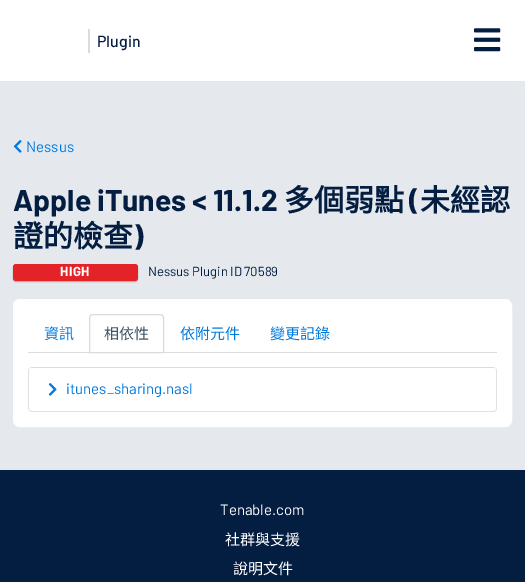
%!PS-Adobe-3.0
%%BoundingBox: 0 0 525 582
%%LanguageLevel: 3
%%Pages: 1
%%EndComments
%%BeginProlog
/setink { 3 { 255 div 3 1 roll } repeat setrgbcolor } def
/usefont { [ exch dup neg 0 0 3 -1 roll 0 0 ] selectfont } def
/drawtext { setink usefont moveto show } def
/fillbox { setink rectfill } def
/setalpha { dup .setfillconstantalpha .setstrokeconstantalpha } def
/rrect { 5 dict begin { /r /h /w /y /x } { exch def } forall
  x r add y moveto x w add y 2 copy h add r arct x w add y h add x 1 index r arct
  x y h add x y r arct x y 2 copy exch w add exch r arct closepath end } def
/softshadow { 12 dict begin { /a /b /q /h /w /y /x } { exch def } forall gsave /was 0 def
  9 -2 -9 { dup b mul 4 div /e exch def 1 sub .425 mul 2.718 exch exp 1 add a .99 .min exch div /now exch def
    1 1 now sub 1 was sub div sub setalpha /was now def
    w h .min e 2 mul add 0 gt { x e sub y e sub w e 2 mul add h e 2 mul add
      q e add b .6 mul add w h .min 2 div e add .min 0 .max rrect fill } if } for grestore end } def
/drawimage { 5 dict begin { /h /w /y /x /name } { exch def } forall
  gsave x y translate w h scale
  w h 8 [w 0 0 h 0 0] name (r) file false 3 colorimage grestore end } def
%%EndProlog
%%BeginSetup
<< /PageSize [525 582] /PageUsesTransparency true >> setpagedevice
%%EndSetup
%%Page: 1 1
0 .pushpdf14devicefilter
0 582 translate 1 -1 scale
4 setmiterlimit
0 0 525 582 255 255 255 fillbox
88 29 2 24 217 219 224 fillbox
(Plugin) 97 47 /Barlow-Medium 16 4 30 66 drawtext
(assets/img1.rgb) 474 28 27 24 drawimage
0 81 525 389 229 233 237 fillbox
(assets/img2.rgb) 13 140 9 13 drawimage
(Nessus) 26 152 /Barlow-Regular 15 0 121 221 drawtext
(Apple iTunes < 11.1.2) 13 211 /Barlow-Bold 30 4 30 66 drawtext
(多個弱點) 284 211 /NotoSansCJKTC-Bold 30 4 30 66 drawtext
(\() 409 211 /Barlow-Bold 30 4 30 66 drawtext
(未經認) 420 211 /NotoSansCJKTC-Bold 30 4 30 66 drawtext
(證的檢查) 13 247 /NotoSansCJKTC-Bold 30 4 30 66 drawtext
(\)) 133 247 /Barlow-Bold 30 4 30 66 drawtext
0 0 0 setink
13 265 125 17 3 0.5 0.25 softshadow
228 35 41 setink
13 264 125 17 3 rrect fill
/Barlow-Bold 13.1 usefont
255 255 255 setink
60 276 moveto 0.5 0 (HIGH) ashow
(Nessus Plugin ID 70589) 148 276 /Barlow-Regular 13.1 4 30 66 drawtext
255 255 255 setink
13.5 299.5 498 127 6.5 rrect gsave fill grestore
stroke
28 352 469 1 217 219 224 fillbox
(資訊) 44 339 /NotoSansCJKTC-Regular 15 0 121 221 drawtext
255 255 255 setink
93 314.5 moveto 160 314.5 lineto 162 314.5 163.5 316 163.5 318 curveto 163.5 352.5 lineto 89.5 352.5 lineto 89.5 318 lineto 89.5 316 91 314.5 93 314.5 curveto closepath gsave fill grestore
217 219 224 setink
stroke
(相依性) 104 339 /NotoSansCJKTC-Regular 15 65 84 101 drawtext
(依附元件) 180 339 /NotoSansCJKTC-Regular 15 0 121 221 drawtext
(變更記錄) 270 339 /NotoSansCJKTC-Regular 15 0 121 221 drawtext
222 226 230 setink
32 367 moveto 493 367 lineto 495 367 497 369 497 371 curveto 497 408 lineto 497 410 495 412 493 412 curveto 32 412 lineto 30 412 28 410 28 408 curveto 28 371 lineto 28 369 30 367 32 367 curveto closepath 32 367 moveto 493 367 lineto 495 367 496 369 496 371 curveto 496 408 lineto 496 410 495 411 493 411 curveto 32 411 lineto 30 411 29 410 29 408 curveto 29 371 lineto 29 369 30 367 32 367 curveto closepath eofill
255 255 255 setink
29 367 467 44 4 rrect fill
31 367 463 1 217 219 224 fillbox
(assets/img3.rgb) 48 383 9 13 drawimage
(itunes_sharing.nasl) 66 394 /Barlow-Regular 15 0 121 221 drawtext
0 470 525 112 4 30 66 fillbox
(Tenable.com) 220 515 /Barlow-Regular 15 255 255 255 drawtext
(社群與支援) 225 545 /NotoSansCJKTC-Regular 15 255 255 255 drawtext
(說明文件) 233 574 /NotoSansCJKTC-Regular 15 255 255 255 drawtext
.poppdf14devicefilter showpage
%%EOF
